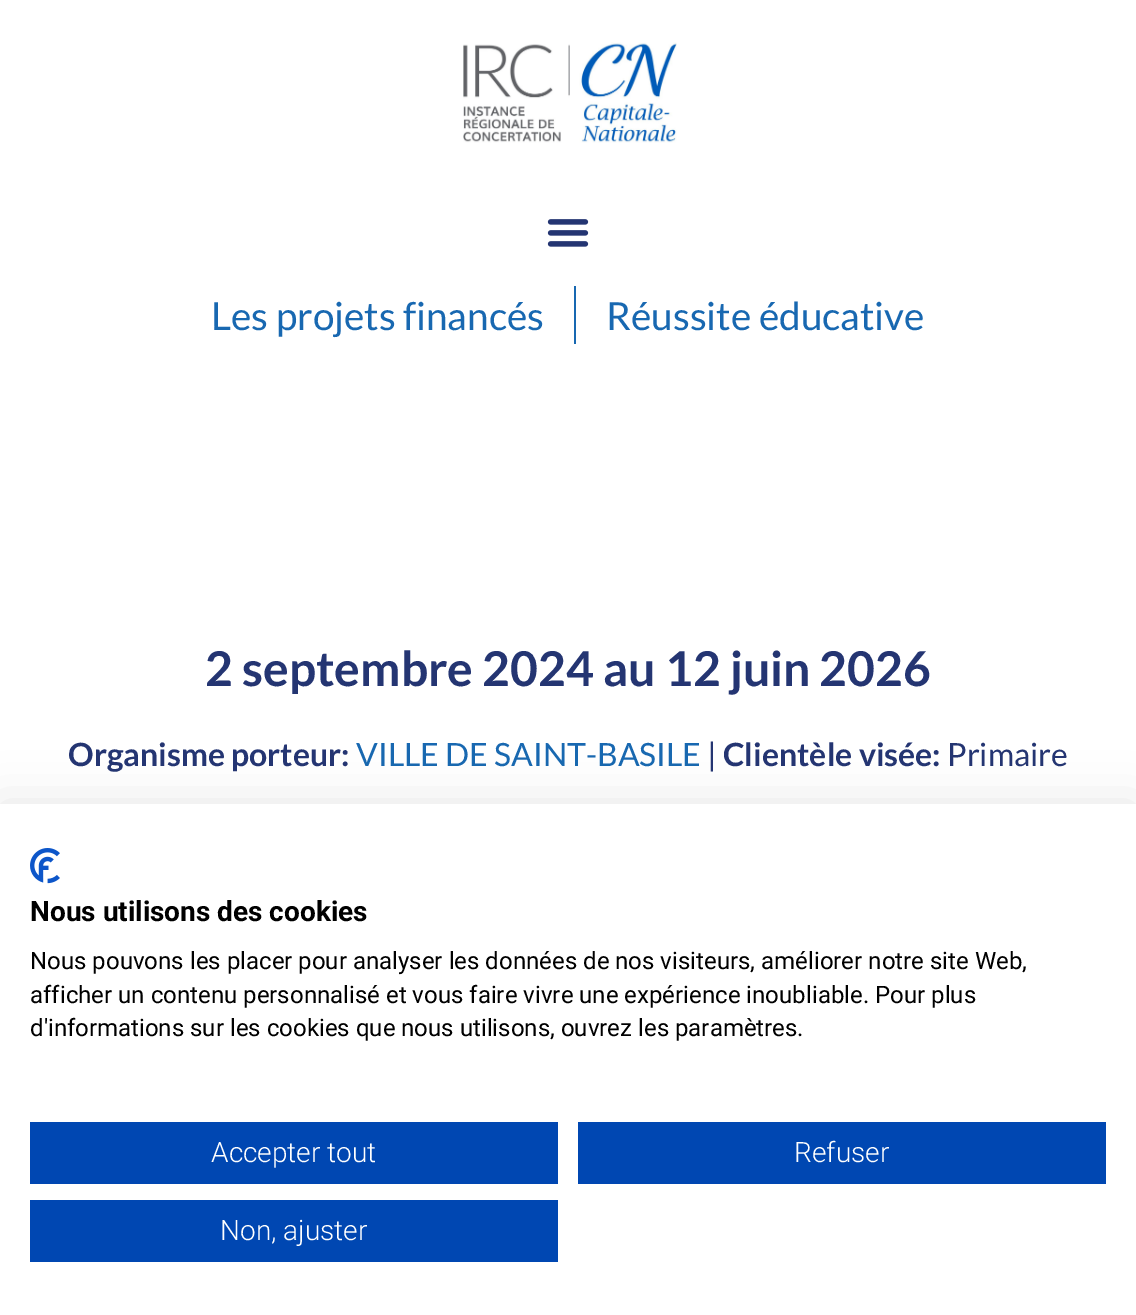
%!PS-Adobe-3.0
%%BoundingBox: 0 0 1136 1315
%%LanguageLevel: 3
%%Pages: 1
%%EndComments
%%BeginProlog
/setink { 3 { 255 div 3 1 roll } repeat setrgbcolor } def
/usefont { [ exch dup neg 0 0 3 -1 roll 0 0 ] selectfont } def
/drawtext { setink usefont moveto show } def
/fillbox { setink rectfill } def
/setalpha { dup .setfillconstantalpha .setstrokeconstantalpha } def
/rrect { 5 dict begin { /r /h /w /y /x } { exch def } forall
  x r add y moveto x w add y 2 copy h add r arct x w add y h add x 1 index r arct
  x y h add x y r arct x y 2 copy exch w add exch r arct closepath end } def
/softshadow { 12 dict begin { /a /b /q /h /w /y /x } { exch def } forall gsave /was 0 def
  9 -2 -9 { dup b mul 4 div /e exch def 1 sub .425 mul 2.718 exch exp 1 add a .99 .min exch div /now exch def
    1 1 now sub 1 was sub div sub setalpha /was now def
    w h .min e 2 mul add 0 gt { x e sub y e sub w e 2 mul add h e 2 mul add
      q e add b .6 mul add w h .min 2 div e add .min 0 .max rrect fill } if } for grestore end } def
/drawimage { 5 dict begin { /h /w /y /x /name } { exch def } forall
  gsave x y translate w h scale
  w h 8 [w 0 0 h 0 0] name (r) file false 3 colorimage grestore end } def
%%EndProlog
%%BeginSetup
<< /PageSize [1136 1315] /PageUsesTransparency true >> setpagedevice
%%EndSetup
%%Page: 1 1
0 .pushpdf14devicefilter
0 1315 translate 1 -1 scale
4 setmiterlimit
0 0 1136 1315 255 255 255 fillbox
(assets/img1.rgb) 463 42 214 101 drawimage
(assets/img2.rgb) 547 219 42 28 drawimage
(Les projets financés) 211 330 /Lato-Regular 38.75 24 104 177 drawtext
574 286 2 58 24 104 177 fillbox
(Réussite éducative) 606 330 /Lato-Regular 38.75 24 104 177 drawtext
(2 septembre 2024 au 12 juin 2026) 205 686 /Lato-Bold 48 36 53 114 drawtext
(Organisme porteur:) 68 766 /Lato-Bold 32 36 53 114 drawtext
(VILLE DE SAINT-BASILE) 356 766 /Lato-Regular 32 24 104 177 drawtext
(|) 707 766 /Lato-Regular 32 36 53 114 drawtext
(Clientèle visée:) 723 766 /Lato-Bold 32 36 53 114 drawtext
(Primaire) 947 766 /Lato-Regular 32 36 53 114 drawtext
0 0 0 setink
0 804 1136 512 0 24 0.1 softshadow
0 804 1136 511 255 255 255 fillbox
(assets/img3.rgb) 30 848 30 36 drawimage
(Nous utilisons des cookies) 30 921 /Roboto-Bold 28 0 0 0 drawtext
(Nous pouvons les placer pour analyser les données de nos visiteurs, améliorer notre site Web,) 30 969 /Roboto-Regular 24 0 0 0 drawtext
(afficher un contenu personnalisé et vous faire vivre une expérience inoubliable. Pour plus) 30 1003 /Roboto-Regular 24 0 0 0 drawtext
(d'informations sur les cookies que nous utilisons, ouvrez les paramètres.) 30 1036 /Roboto-Regular 24 0 0 0 drawtext
30 1122 528 62 0 71 178 fillbox
(Accepter tout) 211 1162 /Roboto-Light 28 255 255 255 drawtext
578 1122 528 62 0 71 178 fillbox
(Refuser) 794 1162 /Roboto-Light 28 255 255 255 drawtext
30 1200 528 62 0 71 178 fillbox
(Non, ajuster) 220 1240 /Roboto-Light 28 255 255 255 drawtext
.poppdf14devicefilter showpage
%%EOF
